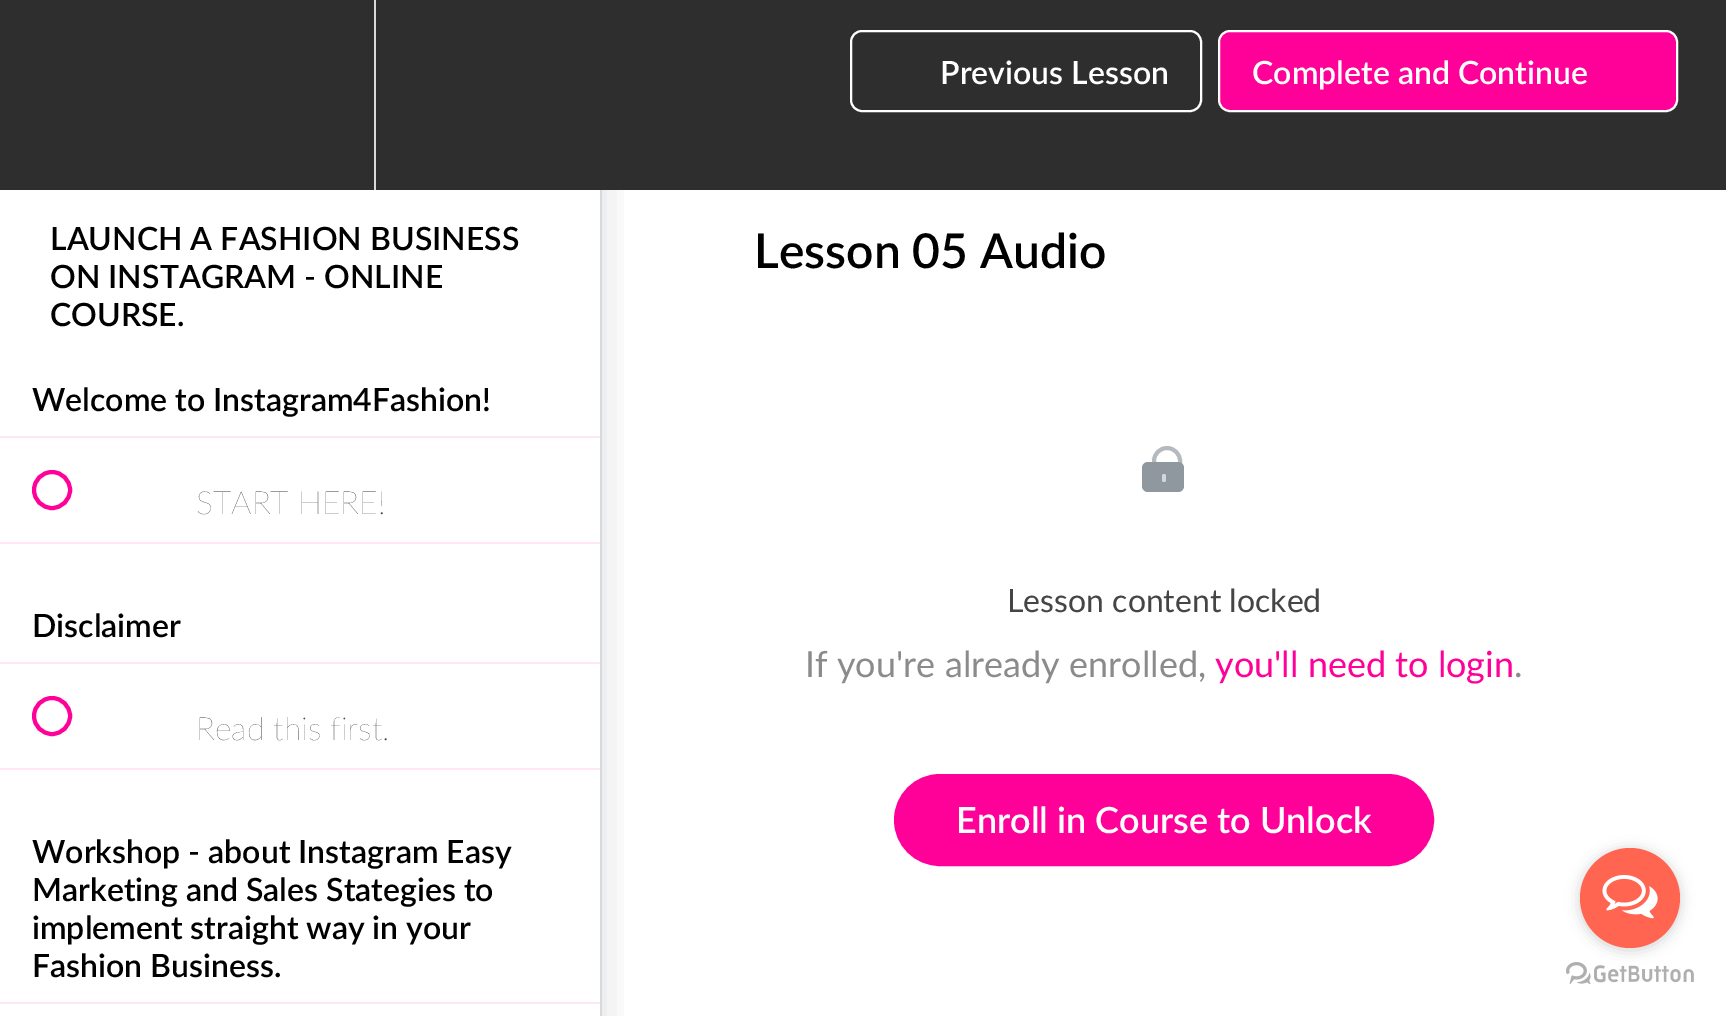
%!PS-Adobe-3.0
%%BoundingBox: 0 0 1726 1016
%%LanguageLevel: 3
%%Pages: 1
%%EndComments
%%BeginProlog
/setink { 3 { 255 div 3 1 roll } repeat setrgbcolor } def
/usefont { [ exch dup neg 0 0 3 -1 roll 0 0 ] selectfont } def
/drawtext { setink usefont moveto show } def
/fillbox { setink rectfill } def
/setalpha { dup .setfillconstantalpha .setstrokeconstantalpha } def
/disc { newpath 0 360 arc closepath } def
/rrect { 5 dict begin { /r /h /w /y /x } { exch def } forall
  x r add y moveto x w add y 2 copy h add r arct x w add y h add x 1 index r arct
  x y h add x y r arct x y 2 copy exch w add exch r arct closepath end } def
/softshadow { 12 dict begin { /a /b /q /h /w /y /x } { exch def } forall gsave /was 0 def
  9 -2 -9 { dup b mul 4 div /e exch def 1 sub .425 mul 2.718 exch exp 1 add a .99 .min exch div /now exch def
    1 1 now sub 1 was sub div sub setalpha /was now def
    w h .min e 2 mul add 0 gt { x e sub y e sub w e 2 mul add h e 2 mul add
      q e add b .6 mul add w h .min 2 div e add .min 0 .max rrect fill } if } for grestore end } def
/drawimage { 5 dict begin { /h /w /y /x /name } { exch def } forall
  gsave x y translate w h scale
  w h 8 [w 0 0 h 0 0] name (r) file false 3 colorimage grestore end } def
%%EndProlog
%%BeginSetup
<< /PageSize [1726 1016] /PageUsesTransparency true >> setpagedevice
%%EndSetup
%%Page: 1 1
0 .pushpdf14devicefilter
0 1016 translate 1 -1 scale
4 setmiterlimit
0 0 1726 1016 255 255 255 fillbox
gsave
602 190 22 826 rectclip
32 39 45 setink
0 180 602 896 0 20 0.15 softshadow
grestore
0 0 1726 190 46 46 46 fillbox
374 0 2 190 215 218 219 fillbox
255 255 255 setink
2 setlinewidth
851 31 350 80 11 rrect stroke
(Previous Lesson) 940 84 /Lato-SemiBold 32 255 255 255 drawtext
255 0 153 setink
1219 31 458 80 11 rrect gsave fill grestore
255 255 255 setink
stroke
(Complete and Continue) 1252 84 /Lato-SemiBold 32 255 255 255 drawtext
600 190 2 826 215 218 219 fillbox
(LAUNCH A FASHION BUSINESS) 50 250 /Lato-SemiBold 32 0 0 0 drawtext
(ON INSTAGRAM - ONLINE) 50 288 /Lato-SemiBold 32 0 0 0 drawtext
(COURSE.) 50 326 /Lato-SemiBold 32 0 0 0 drawtext
0 436 600 2 255 230 245 fillbox
(Welcome to Instagram4Fashion!) 32 411 /Lato-SemiBold 32 0 0 0 drawtext
0 542 600 2 255 230 245 fillbox
255 0 153 setink
4 setlinewidth
52 490 18 disc stroke
(START HERE!) 196 514 /Lato-ExtraLight 32 69 69 69 drawtext
0 662 600 2 255 230 245 fillbox
(Disclaimer) 32 637 /Lato-SemiBold 32 0 0 0 drawtext
0 768 600 2 255 230 245 fillbox
255 0 153 setink
52 716 18 disc stroke
(Read this first.) 196 740 /Lato-ExtraLight 32 69 69 69 drawtext
0 1002 600 2 255 230 245 fillbox
(Workshop - about Instagram Easy) 32 863 /Lato-SemiBold 32 0 0 0 drawtext
(Marketing and Sales Stategies to) 32 901 /Lato-SemiBold 32 0 0 0 drawtext
(implement straight way in your) 32 939 /Lato-SemiBold 32 0 0 0 drawtext
(Fashion Business.) 32 977 /Lato-SemiBold 32 0 0 0 drawtext
(Lesson 05 Audio) 754 268 /Lato-SemiBold 48 0 0 0 drawtext
181 186 191 setink
1154 448 26 40 13 rrect stroke
143 152 159 setink
1142 462 42 30 6 rrect fill
211 215 220 setink
1162 474 4 8 2 rrect fill
(Lesson content locked) 1007 612 /Lato-Regular 32 69 69 69 drawtext
(If you're already enrolled,) 805 677 /Lato-Regular 36 139 139 139 drawtext
(you'll need to login) 1215 677 /Lato-Regular 36 255 0 153 drawtext
(.) 1514 677 /Lato-Regular 36 139 139 139 drawtext
255 0 153 setink
895 775 538 90 45 rrect gsave fill grestore
2 setlinewidth
stroke
(Enroll in Course to Unlock) 956 833 /Lato-SemiBold 36 255 255 255 drawtext
(assets/img2.rgb) 1566 962 128 22 drawimage
136 136 136 setink
1580 850 100 100 50 7 0.4 softshadow
255 101 80 setink
1630 898 50 disc fill
(assets/img1.rgb) 1602 875 56 44 drawimage
.poppdf14devicefilter showpage
%%EOF
